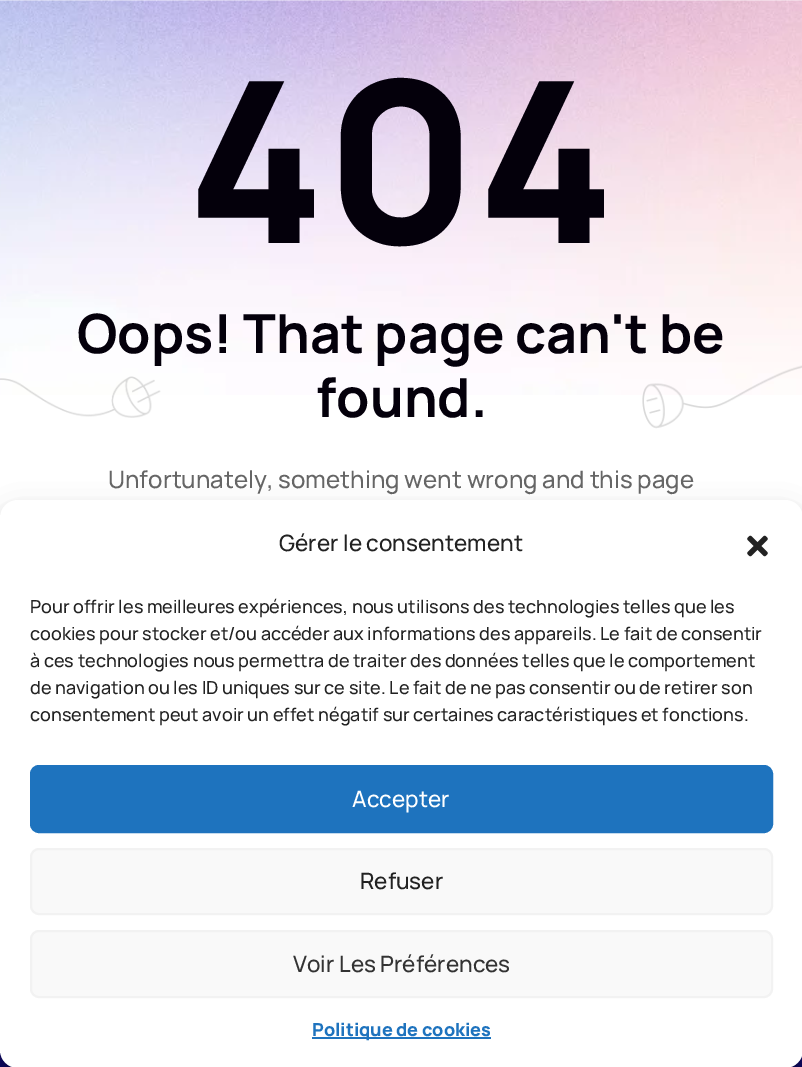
%!PS-Adobe-3.0
%%BoundingBox: 0 0 802 1067
%%LanguageLevel: 3
%%Pages: 1
%%EndComments
%%BeginProlog
/setink { 3 { 255 div 3 1 roll } repeat setrgbcolor } def
/usefont { [ exch dup neg 0 0 3 -1 roll 0 0 ] selectfont } def
/drawtext { setink usefont moveto show } def
/fillbox { setink rectfill } def
/setalpha { dup .setfillconstantalpha .setstrokeconstantalpha } def
/rrect { 5 dict begin { /r /h /w /y /x } { exch def } forall
  x r add y moveto x w add y 2 copy h add r arct x w add y h add x 1 index r arct
  x y h add x y r arct x y 2 copy exch w add exch r arct closepath end } def
/softshadow { 12 dict begin { /a /b /q /h /w /y /x } { exch def } forall gsave /was 0 def
  9 -2 -9 { dup b mul 4 div /e exch def 1 sub .425 mul 2.718 exch exp 1 add a .99 .min exch div /now exch def
    1 1 now sub 1 was sub div sub setalpha /was now def
    w h .min e 2 mul add 0 gt { x e sub y e sub w e 2 mul add h e 2 mul add
      q e add b .6 mul add w h .min 2 div e add .min 0 .max rrect fill } if } for grestore end } def
/drawimage { 5 dict begin { /h /w /y /x /name } { exch def } forall
  gsave x y translate w h scale
  w h 8 [w 0 0 h 0 0] name (r) file false 3 colorimage grestore end } def
%%EndProlog
%%BeginSetup
<< /PageSize [802 1067] /PageUsesTransparency true >> setpagedevice
%%EndSetup
%%Page: 1 1
0 .pushpdf14devicefilter
0 1067 translate 1 -1 scale
4 setmiterlimit
0 0 802 1067 255 255 255 fillbox
(assets/img1.rgb) 0 0 802 395 drawimage
(404) 187 243 /Manrope-ExtraBold 225 4 0 11 drawtext
(assets/img3.rgb) 642 365 160 64 drawimage
/Manrope-Bold 54 usefont
77 353 moveto -0.5 0 32 (Oops! That page can't be) widthshow
(found.) 316 417 /Manrope-Bold 54 4 0 11 drawtext
(Unfortunately, something went wrong and this page) 108 488 /Manrope-Medium 24 102 102 102 drawtext
(assets/img2.rgb) 0 376 161 42 drawimage
0 1050 802 17 15 7 109 fillbox
0 0 0 setink
0 509 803 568 18 4.5 0.23 softshadow
0 515 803 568 18 15 0.19 softshadow
255 255 255 setink
0 500 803 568 18 rrect fill
(Gérer le consentement) 279 551 /Manrope-Medium 22.5 34 34 34 drawtext
(assets/img4.rgb) 747 535 21 22 drawimage
(Pour offrir les meilleures expériences, nous utilisons des technologies telles que les) 30 613 /Manrope-Medium 18 34 34 34 drawtext
(cookies pour stocker et/ou accéder aux informations des appareils. Le fait de consentir) 30 640 /Manrope-Medium 18 34 34 34 drawtext
(à ces technologies nous permettra de traiter des données telles que le comportement) 30 667 /Manrope-Medium 18 34 34 34 drawtext
(de navigation ou les ID uniques sur ce site. Le fait de ne pas consentir ou de retirer son) 30 694 /Manrope-Medium 18 34 34 34 drawtext
(consentement peut avoir un effet négatif sur certaines caractéristiques et fonctions.) 30 721 /Manrope-Medium 18 34 34 34 drawtext
30 115 190 setink
31 766 741 66 8 rrect gsave fill grestore
2 setlinewidth
stroke
(Accepter) 352 807 /Manrope-Medium 22.5 255 255 255 drawtext
249 249 249 setink
31 849 741 65 8 rrect gsave fill grestore
242 242 242 setink
stroke
(Refuser) 360 889 /Manrope-Medium 22.5 34 34 34 drawtext
249 249 249 setink
31 931 741 66 8 rrect gsave fill grestore
242 242 242 setink
stroke
(Voir Les Préférences) 293 972 /Manrope-Medium 22.5 51 51 51 drawtext
312 1037 179 2 30 115 190 fillbox
(Politique de cookies) 312 1036 /Manrope-ExtraBold 18 30 115 190 drawtext
.poppdf14devicefilter showpage
%%EOF
